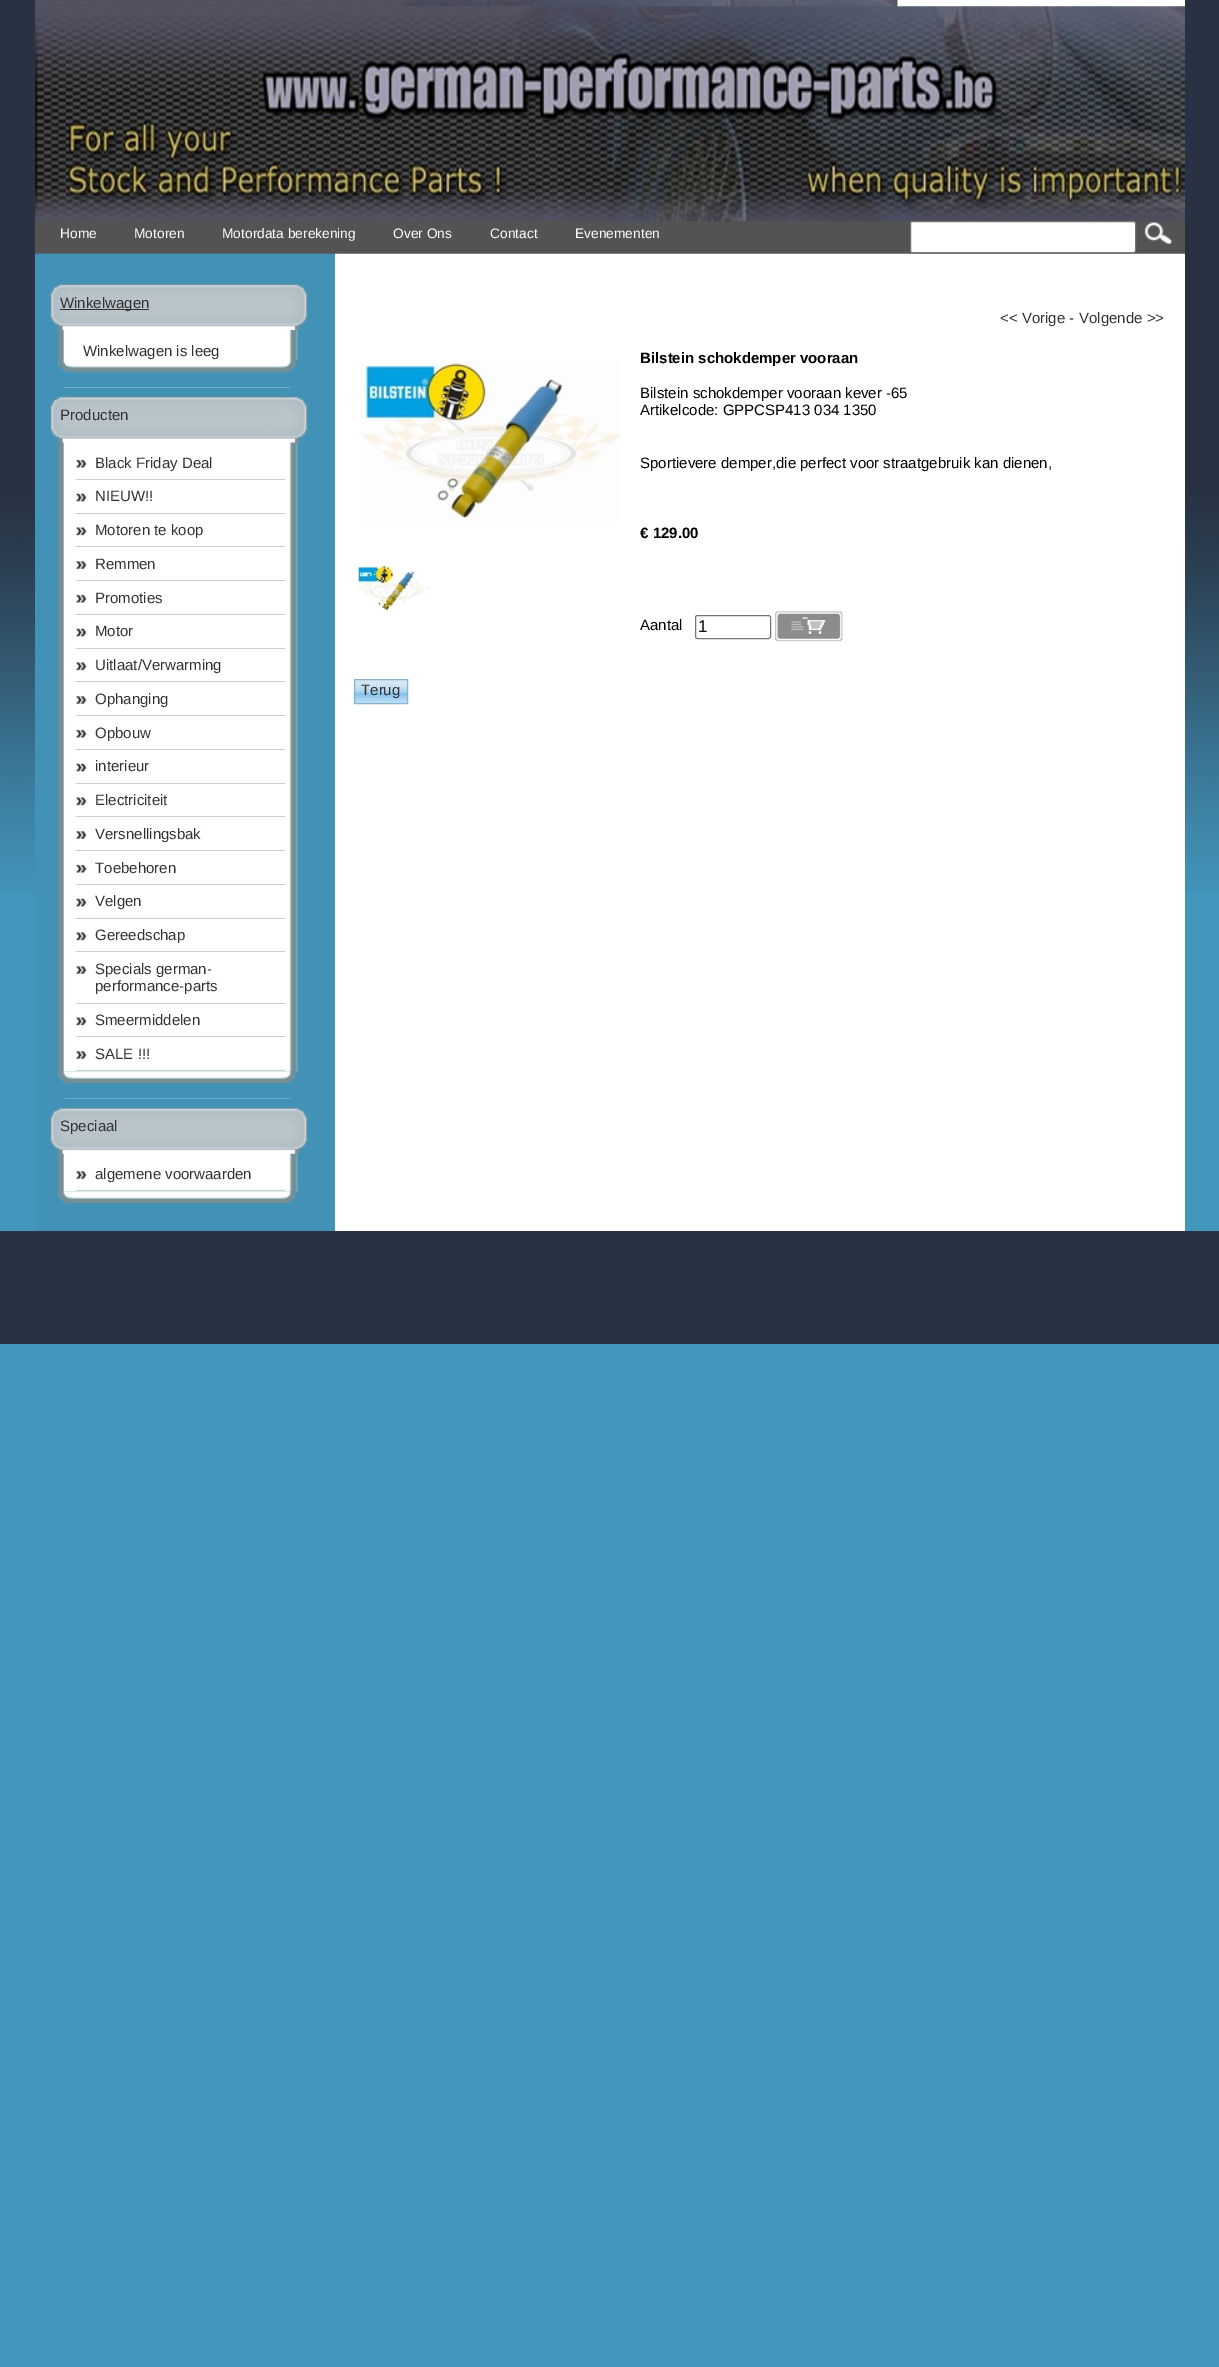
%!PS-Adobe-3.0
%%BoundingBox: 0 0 1219 2367
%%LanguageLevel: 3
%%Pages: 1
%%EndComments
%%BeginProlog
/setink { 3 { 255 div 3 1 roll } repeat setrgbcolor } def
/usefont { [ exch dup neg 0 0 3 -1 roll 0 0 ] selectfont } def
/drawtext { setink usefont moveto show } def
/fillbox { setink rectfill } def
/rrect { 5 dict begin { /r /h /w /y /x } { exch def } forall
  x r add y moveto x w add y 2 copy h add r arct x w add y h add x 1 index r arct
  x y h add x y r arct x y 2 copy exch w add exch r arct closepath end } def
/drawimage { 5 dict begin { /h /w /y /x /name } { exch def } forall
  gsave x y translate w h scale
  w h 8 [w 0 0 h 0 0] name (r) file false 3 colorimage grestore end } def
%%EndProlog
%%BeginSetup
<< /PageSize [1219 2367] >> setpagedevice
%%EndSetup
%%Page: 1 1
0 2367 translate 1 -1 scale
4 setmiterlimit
0 0 1219 2367 66 150 187 fillbox
(assets/img1.rgb) 0 0 1219 892 drawimage
335 0 850 1231 255 255 255 fillbox
35 253 300 978 66 146 183 fillbox
(assets/img2.rgb) 35 0 863 7 drawimage
(assets/img4.rgb) 35 221 1150 33 drawimage
(assets/img3.rgb) 35 6 1150 216 drawimage
(Home) 60 238 /LiberationSans-Regular 13.75 255 255 255 drawtext
(Motoren) 134 238 /LiberationSans-Regular 13.75 255 255 255 drawtext
(Motordata berekening) 222 238 /LiberationSans-Regular 13.75 255 255 255 drawtext
(Over Ons) 393 238 /LiberationSans-Regular 13.75 255 255 255 drawtext
(Contact) 490 238 /LiberationSans-Regular 13.75 255 255 255 drawtext
(Evenementen) 575 238 /LiberationSans-Regular 13.75 255 255 255 drawtext
910.5 221.5 225 31 2 rrect gsave fill grestore
118 118 118 setink
stroke
(assets/img5.rgb) 1144 222 28 22 drawimage
(assets/img6.rgb) 57 330 241 30 drawimage
(assets/img7.rgb) 50 275 258 55 drawimage
60 309 89 1 51 51 51 fillbox
(Winkelwagen) 60 308 /LiberationSans-Regular 15 51 51 51 drawtext
(Winkelwagen is leeg) 83 356 /LiberationSans-Regular 15 51 51 51 drawtext
(assets/img8.rgb) 57 360 241 13 drawimage
(assets/img9.rgb) 57 387 241 685 drawimage
(assets/img10.rgb) 49 387 262 56 drawimage
(Producten) 60 420 /LiberationSans-Regular 15 51 51 51 drawtext
76 479 209 1 204 204 204 fillbox
(assets/img11.rgb) 76 459 11 9 drawimage
(Black Friday Deal) 95 468 /LiberationSans-Regular 15 51 51 51 drawtext
76 513 209 1 204 204 204 fillbox
(assets/img12.rgb) 76 493 11 9 drawimage
(NIEUW!!) 95 501 /LiberationSans-Regular 15 51 51 51 drawtext
76 546 209 1 204 204 204 fillbox
(assets/img13.rgb) 76 527 11 9 drawimage
(Motoren te koop) 95 535 /LiberationSans-Regular 15 51 51 51 drawtext
76 580 209 1 204 204 204 fillbox
(assets/img14.rgb) 76 561 11 8 drawimage
(Remmen) 95 569 /LiberationSans-Regular 15 51 51 51 drawtext
76 614 209 1 204 204 204 fillbox
(assets/img11.rgb) 76 594 11 9 drawimage
(Promoties) 95 603 /LiberationSans-Regular 15 51 51 51 drawtext
76 648 209 1 204 204 204 fillbox
(assets/img12.rgb) 76 628 11 9 drawimage
(Motor) 95 636 /LiberationSans-Regular 15 51 51 51 drawtext
76 681 209 1 204 204 204 fillbox
(assets/img13.rgb) 76 662 11 9 drawimage
(Uitlaat/Verwarming) 95 670 /LiberationSans-Regular 15 51 51 51 drawtext
76 715 209 1 204 204 204 fillbox
(assets/img14.rgb) 76 696 11 8 drawimage
(Ophanging) 95 704 /LiberationSans-Regular 15 51 51 51 drawtext
76 749 209 1 204 204 204 fillbox
(assets/img11.rgb) 76 729 11 9 drawimage
(Opbouw) 95 738 /LiberationSans-Regular 15 51 51 51 drawtext
76 783 209 1 204 204 204 fillbox
(assets/img12.rgb) 76 763 11 9 drawimage
(interieur) 95 771 /LiberationSans-Regular 15 51 51 51 drawtext
76 816 209 1 204 204 204 fillbox
(assets/img13.rgb) 76 797 11 9 drawimage
(Electriciteit) 95 805 /LiberationSans-Regular 15 51 51 51 drawtext
76 850 209 1 204 204 204 fillbox
(assets/img14.rgb) 76 831 11 8 drawimage
(Versnellingsbak) 95 839 /LiberationSans-Regular 15 51 51 51 drawtext
76 884 209 1 204 204 204 fillbox
(assets/img11.rgb) 76 864 11 9 drawimage
(Toebehoren) 95 873 /LiberationSans-Regular 15 51 51 51 drawtext
76 918 209 1 204 204 204 fillbox
(assets/img12.rgb) 76 898 11 9 drawimage
(Velgen) 95 906 /LiberationSans-Regular 15 51 51 51 drawtext
76 951 209 1 204 204 204 fillbox
(assets/img13.rgb) 76 932 11 9 drawimage
(Gereedschap) 95 940 /LiberationSans-Regular 15 51 51 51 drawtext
76 1003 209 1 204 204 204 fillbox
(assets/img14.rgb) 76 966 11 8 drawimage
(Specials german-) 95 974 /LiberationSans-Regular 15 51 51 51 drawtext
(performance-parts) 95 991 /LiberationSans-Regular 15 51 51 51 drawtext
76 1036 209 1 204 204 204 fillbox
(assets/img13.rgb) 76 1017 11 9 drawimage
(Smeermiddelen) 95 1025 /LiberationSans-Regular 15 51 51 51 drawtext
76 1070 209 1 204 204 204 fillbox
(assets/img14.rgb) 76 1051 11 8 drawimage
(SALE !!!) 95 1059 /LiberationSans-Regular 15 51 51 51 drawtext
(assets/img15.rgb) 57 1071 241 13 drawimage
(assets/img16.rgb) 57 1098 241 94 drawimage
(assets/img17.rgb) 49 1098 259 56 drawimage
(Speciaal) 60 1131 /LiberationSans-Regular 15 51 51 51 drawtext
76 1190 209 1 204 204 204 fillbox
(assets/img18.rgb) 76 1171 11 8 drawimage
(algemene voorwaarden) 95 1179 /LiberationSans-Regular 15 51 51 51 drawtext
(assets/img15.rgb) 57 1191 241 13 drawimage
(<< Vorige) 1000 323 /LiberationSans-Regular 15 51 51 51 drawtext
(-) 1069 323 /LiberationSans-Regular 15 0 0 0 drawtext
(Volgende >>) 1079 323 /LiberationSans-Regular 15 51 51 51 drawtext
(assets/img19.rgb) 360 360 261 161 drawimage
(assets/img20.rgb) 357 566 73 45 drawimage
(Bilstein schokdemper vooraan) 640 363 /LiberationSans-Bold 15 0 0 0 drawtext
(Bilstein schokdemper vooraan kever -65) 640 398 /LiberationSans-Regular 15 0 0 0 drawtext
(Artikelcode: GPPCSP413 034 1350) 640 415 /LiberationSans-Regular 15 0 0 0 drawtext
(Sportievere demper,die perfect voor straatgebruik kan dienen,) 640 468 /LiberationSans-Regular 15 0 0 0 drawtext
(€ 129.00) 640 538 /LiberationSans-Bold 15 0 0 0 drawtext
(Aantal) 640 630 /LiberationSans-Regular 15 0 0 0 drawtext
118 118 118 setink
695.5 615.5 75 23 2 rrect stroke
(1) 698 632 /LiberationSans-Regular 17 0 0 0 drawtext
(assets/img21.rgb) 775 611 68 31 drawimage
(assets/img22.rgb) 353 680 54 24 drawimage
137 179 210 setink
354.5 679.5 53 24 rectstroke
(Terug) 361 695 /LiberationSans-Regular 15 51 51 51 drawtext
0 1231 1219 113 41 50 67 fillbox
showpage
%%EOF
